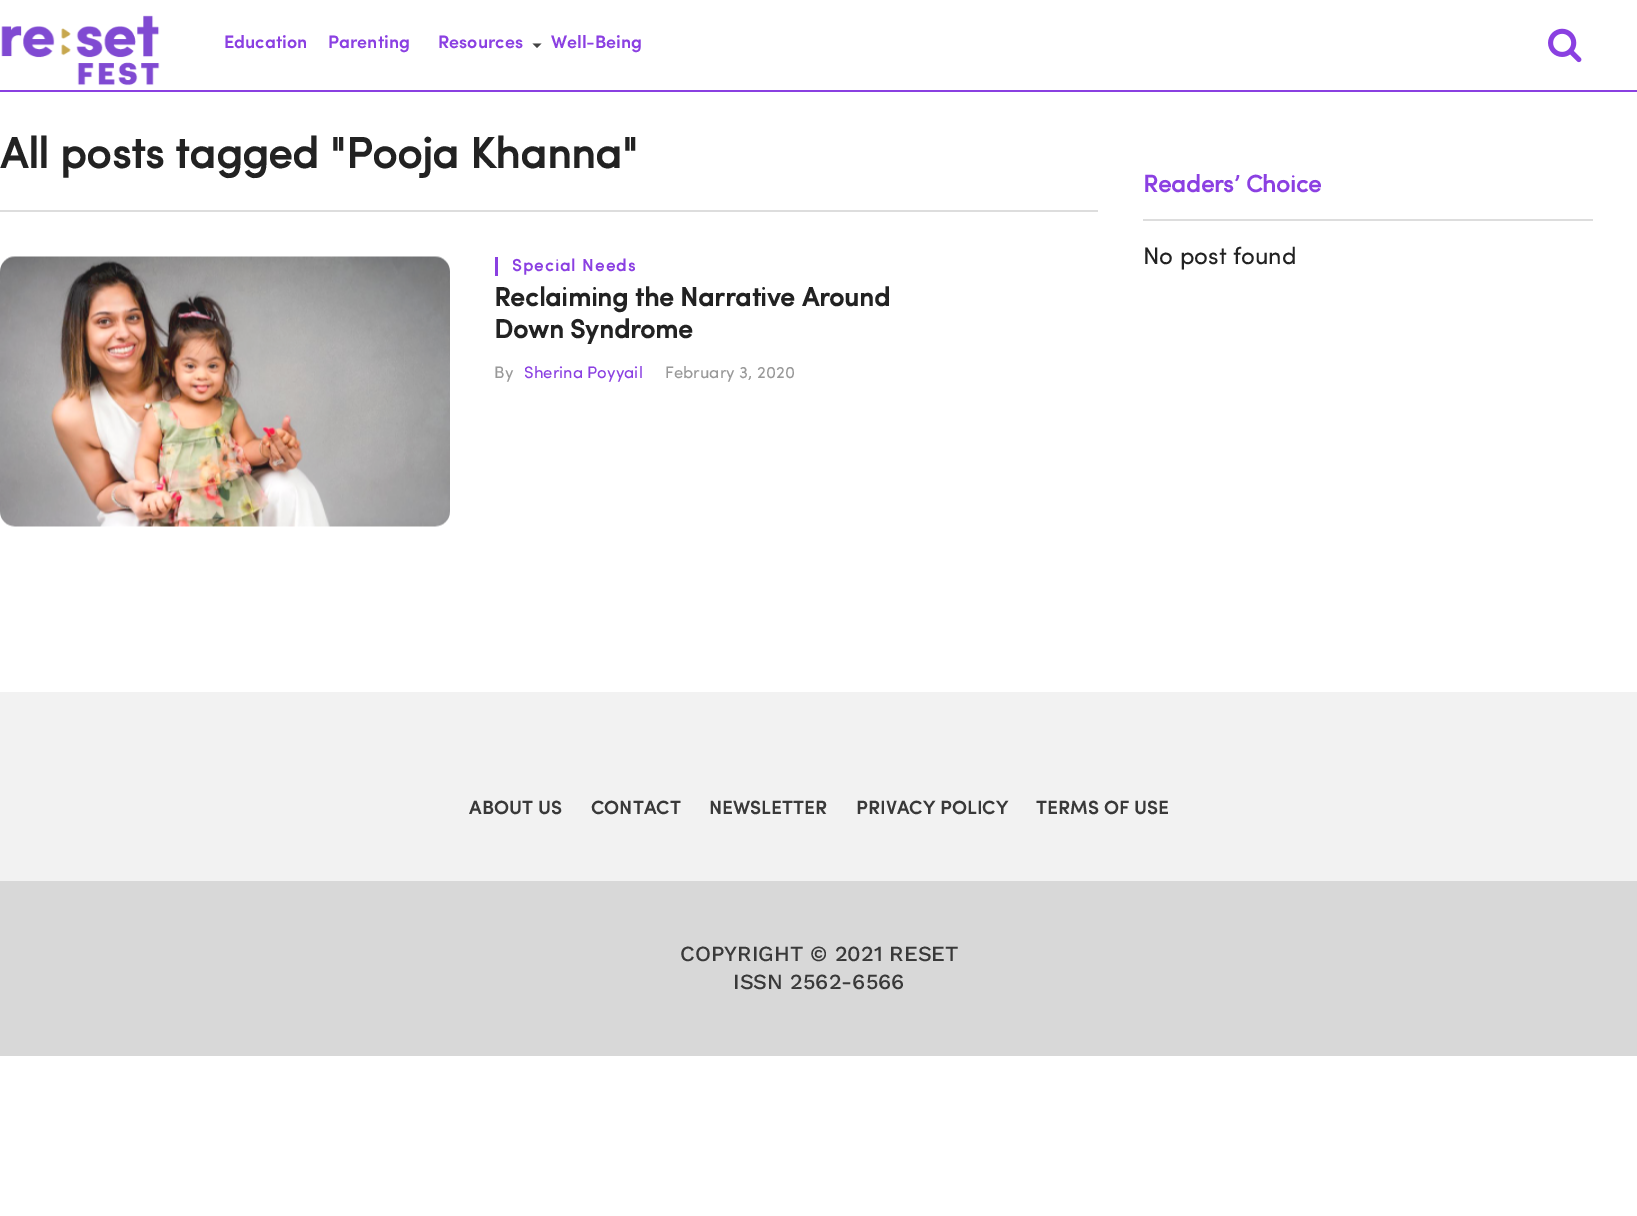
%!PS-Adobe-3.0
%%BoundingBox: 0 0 1637 1216
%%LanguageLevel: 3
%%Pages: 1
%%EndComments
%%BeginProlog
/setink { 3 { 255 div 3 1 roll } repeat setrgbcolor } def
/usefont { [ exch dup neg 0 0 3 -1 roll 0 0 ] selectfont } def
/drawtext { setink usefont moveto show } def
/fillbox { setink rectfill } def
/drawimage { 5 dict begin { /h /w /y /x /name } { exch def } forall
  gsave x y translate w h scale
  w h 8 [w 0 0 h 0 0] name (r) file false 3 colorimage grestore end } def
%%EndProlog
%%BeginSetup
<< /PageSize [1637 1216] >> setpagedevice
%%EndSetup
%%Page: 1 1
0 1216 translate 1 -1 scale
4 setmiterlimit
0 0 1637 1216 255 255 255 fillbox
0 90 1637 2 138 64 225 fillbox
(assets/img1.rgb) 1 15 159 71 drawimage
(Education) 224 48 /Sofia-SemiBold 18 139 64 226 drawtext
(Parenting) 328 48 /Sofia-SemiBold 18 139 64 226 drawtext
(Resources) 438 48 /Sofia-SemiBold 18 139 64 226 drawtext
68 68 68 setink
532.5 43.5 moveto 541.5 43.5 lineto 537 48 lineto closepath fill
(Well-Being) 551 48 /Sofia-SemiBold 18 139 64 226 drawtext
(assets/img2.rgb) 1548 28 34 35 drawimage
(All posts tagged "Pooja Khanna") 0 168 /Sofia-Bold 43.25 34 34 34 drawtext
0 210 1098 2 221 221 221 fillbox
(assets/img3.rgb) 0 256 450 271 drawimage
495 257 3 19 138 64 225 fillbox
/Sofia-Bold 16.75 usefont
139 64 226 setink
512 271 moveto 1.25 0 (Special Needs) ashow
(Reclaiming the Narrative Around) 494 306 /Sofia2-Bold 26.4 34 34 34 drawtext
(Down Syndrome) 494 338 /Sofia2-Bold 26.4 34 34 34 drawtext
(By) 494 378 /Sofia-Regular 16.75 153 153 153 drawtext
(Sherina Poyyail) 524 378 /Sofia-Regular 16.75 139 64 226 drawtext
(February 3, 2020) 665 378 /Sofia-Regular 16.75 153 153 153 drawtext
1143 219 450 2 221 221 221 fillbox
(Readers’ Choice) 1143 192 /Sofia-Bold 24 139 64 226 drawtext
(No post found) 1143 264 /Sofia-Regular 24 34 34 34 drawtext
0 692 1637 189 242 242 242 fillbox
(ABOUT US) 469 814 /Sofia-SemiBold 19.25 57 57 57 drawtext
(CONTACT) 591 814 /Sofia-SemiBold 19.25 57 57 57 drawtext
(NEWSLETTER) 709 814 /Sofia-SemiBold 19.25 57 57 57 drawtext
(PRIVACY POLICY) 856 814 /Sofia-SemiBold 19.25 57 57 57 drawtext
(TERMS OF USE) 1036 814 /Sofia-SemiBold 19.25 57 57 57 drawtext
0 881 1637 175 216 216 216 fillbox
(COPYRIGHT © 2021 RESET) 680 961 /WorkSans-Medium 21.6 57 57 57 drawtext
(ISSN 2562-6566) 733 989 /WorkSans-Medium 21.6 57 57 57 drawtext
showpage
%%EOF
